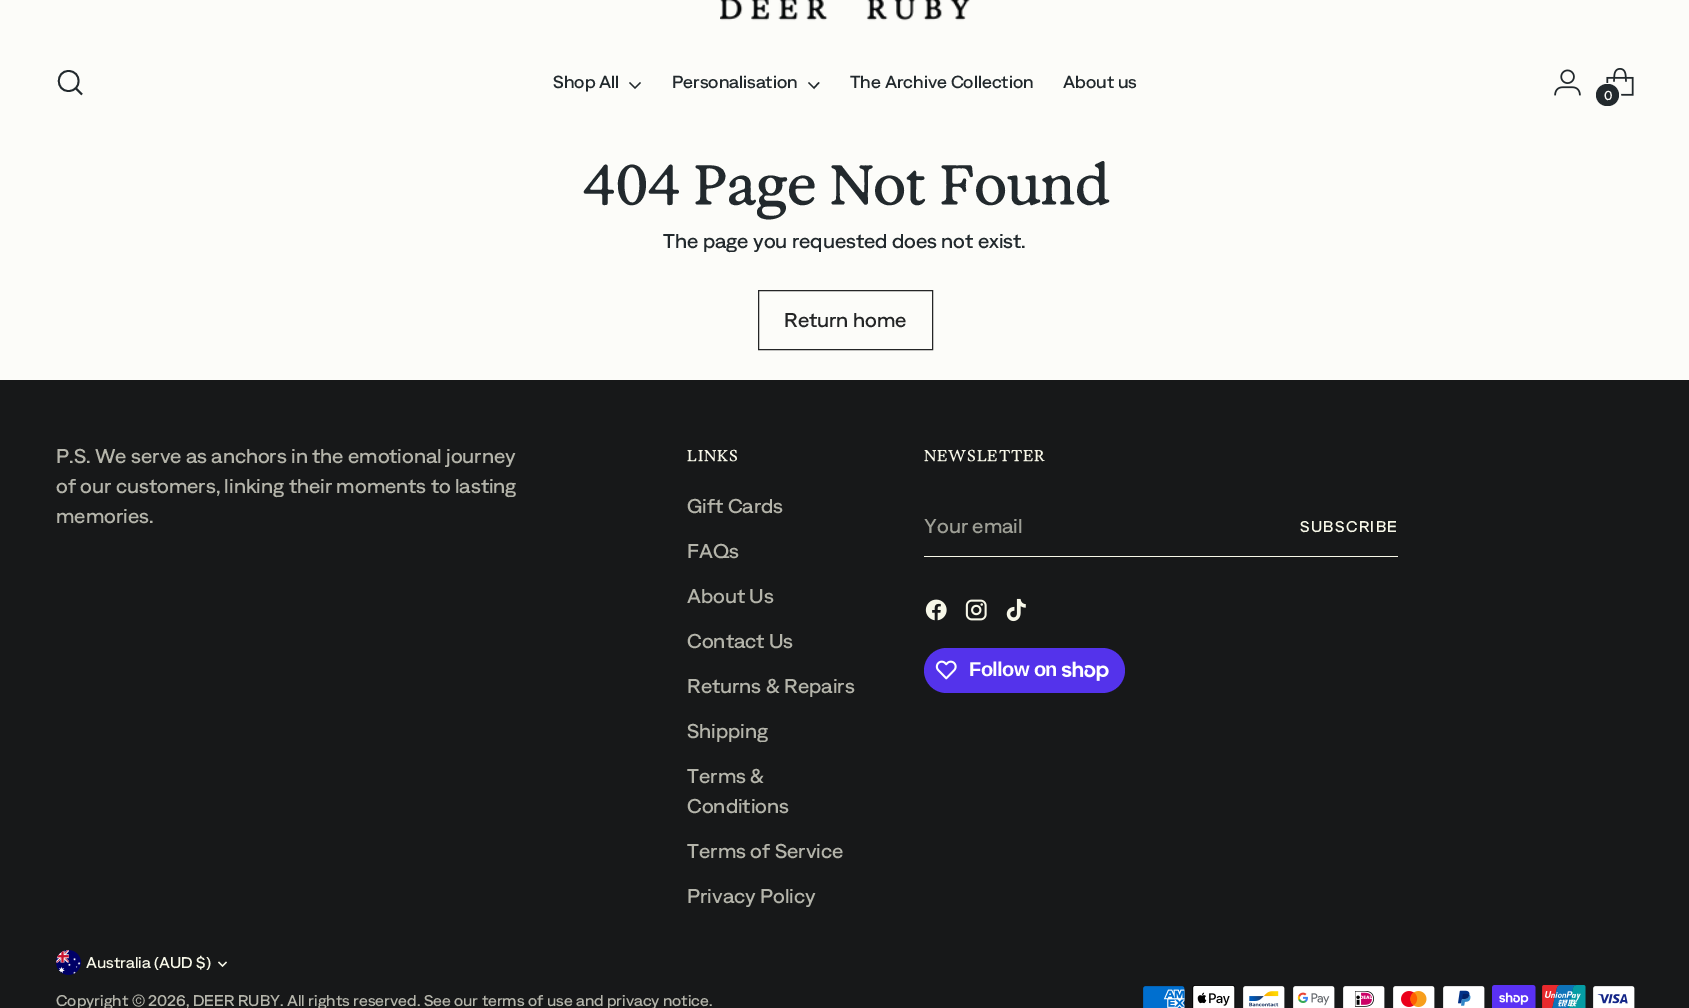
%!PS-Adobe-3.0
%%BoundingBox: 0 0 1689 1008
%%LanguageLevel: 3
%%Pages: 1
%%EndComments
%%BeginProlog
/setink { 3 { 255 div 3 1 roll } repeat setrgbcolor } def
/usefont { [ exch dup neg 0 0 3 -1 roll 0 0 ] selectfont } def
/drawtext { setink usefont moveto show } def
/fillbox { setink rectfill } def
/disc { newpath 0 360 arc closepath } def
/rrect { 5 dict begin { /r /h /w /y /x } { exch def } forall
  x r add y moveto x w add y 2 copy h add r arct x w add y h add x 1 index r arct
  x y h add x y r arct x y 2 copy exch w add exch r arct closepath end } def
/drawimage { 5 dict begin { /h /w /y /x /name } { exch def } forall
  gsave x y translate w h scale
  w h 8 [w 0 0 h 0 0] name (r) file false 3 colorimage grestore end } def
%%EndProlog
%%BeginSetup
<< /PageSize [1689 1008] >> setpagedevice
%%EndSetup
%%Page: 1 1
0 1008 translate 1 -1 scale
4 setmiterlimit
0 0 1689 1008 252 252 249 fillbox
(assets/img1.rgb) 720 0 250 21 drawimage
34 41 45 setink
1.8 setlinewidth
1 setlinecap
68.5 91 moveto 82 91 82 71 68.5 71 curveto 55.5 71 55.5 91 68.5 91 curveto closepath stroke
0 setlinecap
76 88.5 moveto 82 94.5 lineto stroke
(Shop All) 553 88 /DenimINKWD-Medium 17.5 34 41 45 drawtext
1.4 setlinewidth
629.5 82.5 moveto 635 88 lineto 640.5 82.5 lineto stroke
(Personalisation) 672 88 /DenimINKWD-Medium 17.5 34 41 45 drawtext
808.5 82.5 moveto 814 88 lineto 819 82.5 lineto stroke
(The Archive Collection) 850 88 /DenimINKWD-Medium 17.5 34 41 45 drawtext
(About us) 1063 88 /DenimINKWD-Medium 17.5 34 41 45 drawtext
(assets/img2.rgb) 1554 69 27 27 drawimage
(assets/img3.rgb) 1606 68 28 28 drawimage
252 252 249 setink
2 setlinewidth
1608 96 12 disc stroke
34 41 45 setink
1596 84 23 22 11 rrect fill
(0) 1604 100 /DenimINKWD-Medium 13 252 252 249 drawtext
/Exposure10-Regular 54.75 usefont
34 41 45 setink
583 204 moveto -0.25 0 (404 Page Not Found) ashow
(The page you requested does not exist.) 663 248 /DenimINKWD-Medium 20 34 41 45 drawtext
36 37 38 setink
1 setlinewidth
758.5 290.5 174 59 rectstroke
(Return home) 784 327 /DenimINKWD-Medium 20 36 37 38 drawtext
0 380 1689 628 23 24 25 fillbox
(P.S. We serve as anchors in the emotional journey) 56 463 /DenimINKWD-Medium 20 180 180 170 drawtext
(of our customers, linking their moments to lasting) 56 493 /DenimINKWD-Medium 20 180 180 170 drawtext
(memories.) 56 523 /DenimINKWD-Medium 20 180 180 170 drawtext
/Exposure10-Regular 15.55 usefont
247 247 232 setink
687 461 moveto 0.75 0 (LINKS) ashow
(Gift Cards) 687 513 /DenimINKWD-Medium 20 180 180 170 drawtext
(FAQs) 687 558 /DenimINKWD-Medium 20 180 180 170 drawtext
(About Us) 687 603 /DenimINKWD-Medium 20 180 180 170 drawtext
(Contact Us) 687 648 /DenimINKWD-Medium 20 180 180 170 drawtext
(Returns & Repairs) 687 693 /DenimINKWD-Medium 20 180 180 170 drawtext
(Shipping) 687 738 /DenimINKWD-Medium 20 180 180 170 drawtext
(Terms &) 687 783 /DenimINKWD-Medium 20 180 180 170 drawtext
(Conditions) 687 813 /DenimINKWD-Medium 20 180 180 170 drawtext
(Terms of Service) 687 858 /DenimINKWD-Medium 20 180 180 170 drawtext
(Privacy Policy) 687 903 /DenimINKWD-Medium 20 180 180 170 drawtext
/Exposure10-Regular 15.55 usefont
247 247 232 setink
924 461 moveto 0.75 0 (NEWSLETTER) ashow
924 556 474 1 247 247 232 fillbox
(Your email) 924 533 /DenimINKWD-Medium 20 157 158 149 drawtext
/DenimINKWD-Medium 15.55 usefont
247 247 232 setink
1300 532 moveto 1.25 0 (SUBSCRIBE) ashow
(assets/img4.rgb) 925 599 22 22 drawimage
(assets/img5.rgb) 965 599 22 22 drawimage
(assets/img6.rgb) 1006 598 20 24 drawimage
84 51 235 setink
924 648 201 45 22.5 rrect fill
(assets/img7.rgb) 935 660 22 20 drawimage
/LiberationSans-Bold 20 usefont
255 255 255 setink
969 676 moveto -0.6 0 (Follow on) ashow
(assets/img8.rgb) 1061 661 48 20 drawimage
(assets/img9.rgb) 56 950 25 25 drawimage
(Australia \(AUD $\)) 86 968 /DenimINKWD-Medium 15.55 247 247 232 drawtext
1.1 setlinewidth
218.5 962 moveto 222.5 966 lineto 226.5 962 lineto stroke
(Copyright © 2026, DEER RUBY. All rights reserved. See our terms of use and privacy notice.) 56 1006 /DenimINKWD-Medium 15.55 180 180 170 drawtext
(assets/img10.rgb) 1143 986 42 22 drawimage
(assets/img11.rgb) 1192 985 44 23 drawimage
(assets/img12.rgb) 1243 986 42 22 drawimage
(assets/img13.rgb) 1293 986 42 22 drawimage
(assets/img14.rgb) 1343 986 42 22 drawimage
(assets/img15.rgb) 1393 986 42 22 drawimage
(assets/img16.rgb) 1443 986 42 22 drawimage
(assets/img17.rgb) 1492 985 44 23 drawimage
(assets/img18.rgb) 1542 985 44 23 drawimage
(assets/img19.rgb) 1593 986 42 22 drawimage
showpage
%%EOF
